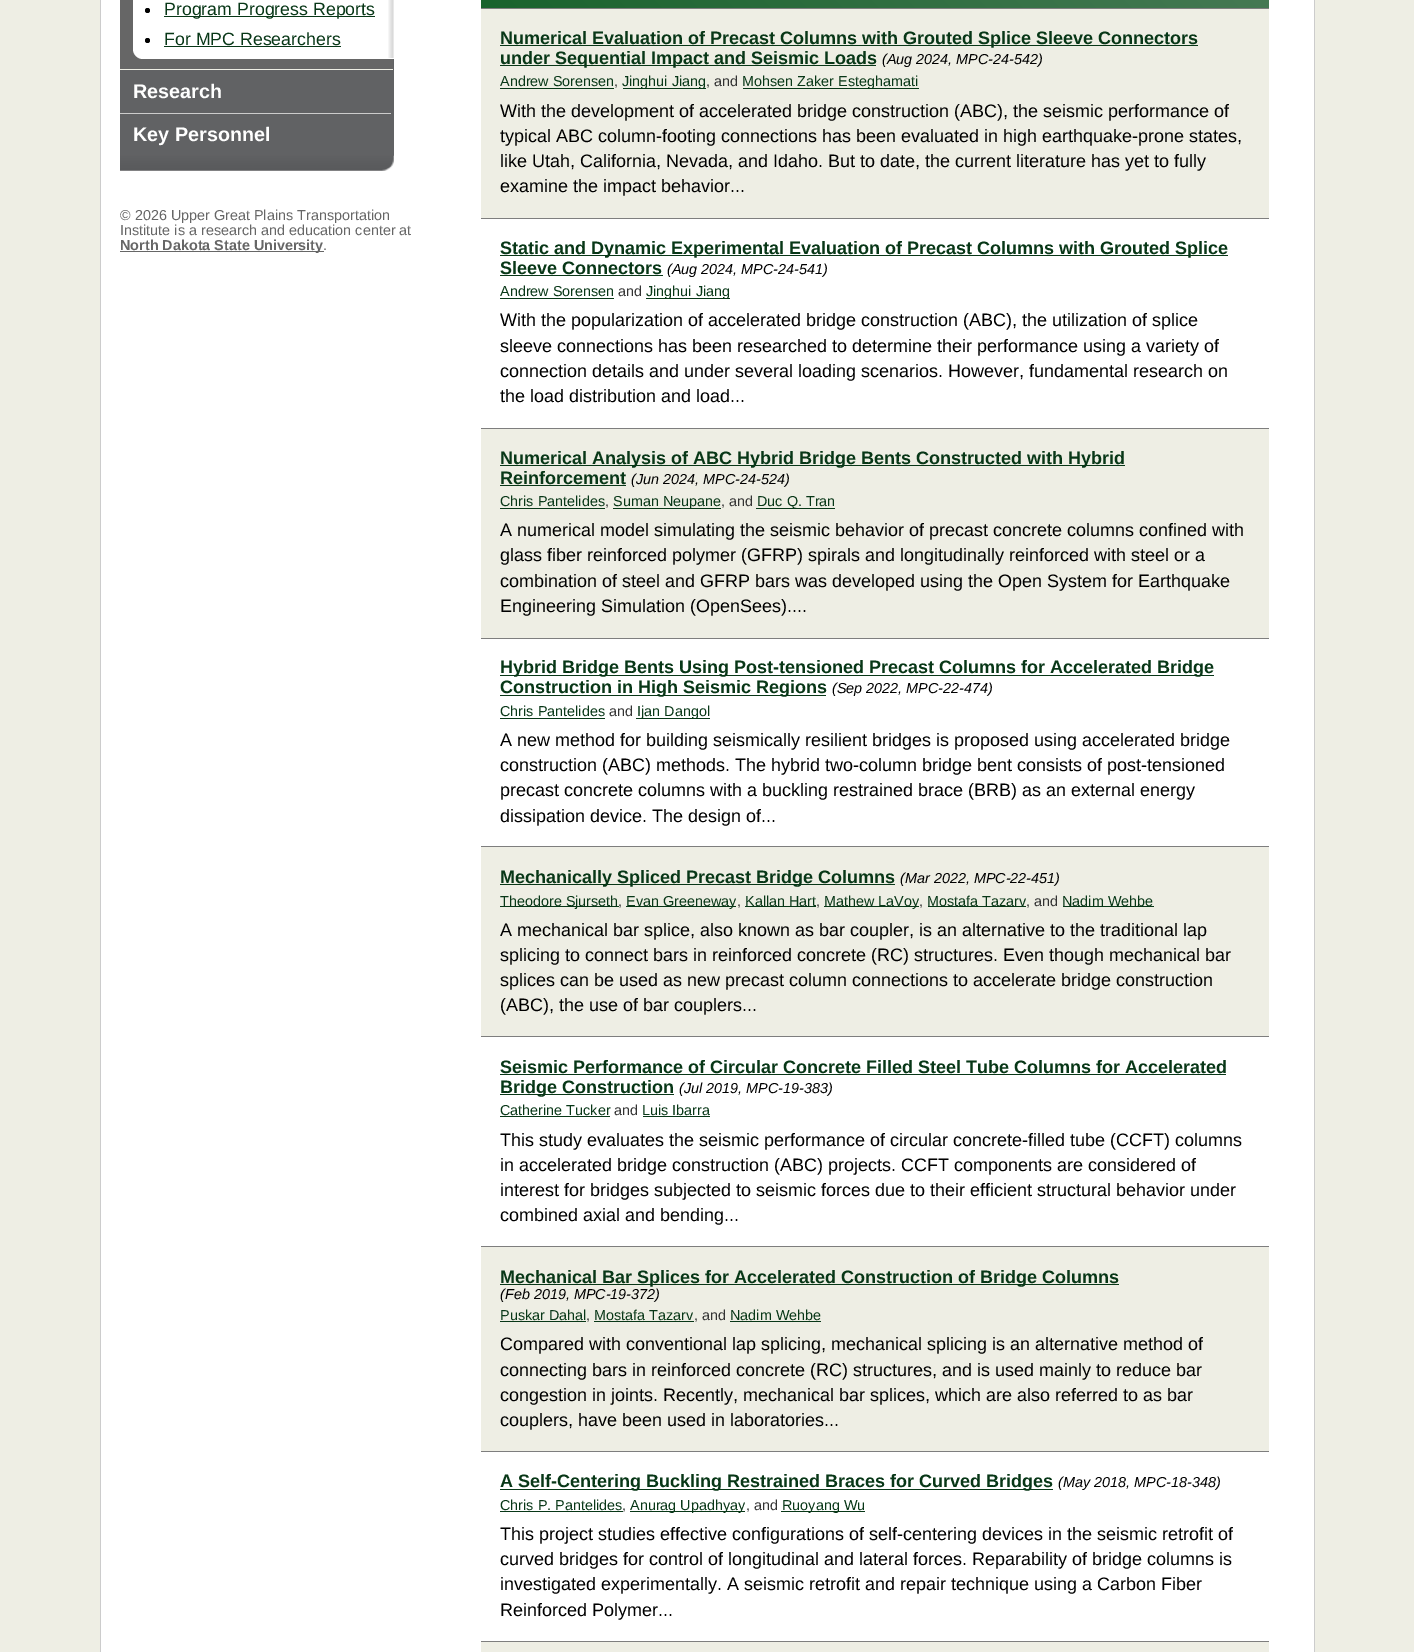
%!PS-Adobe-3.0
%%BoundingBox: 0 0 1414 1652
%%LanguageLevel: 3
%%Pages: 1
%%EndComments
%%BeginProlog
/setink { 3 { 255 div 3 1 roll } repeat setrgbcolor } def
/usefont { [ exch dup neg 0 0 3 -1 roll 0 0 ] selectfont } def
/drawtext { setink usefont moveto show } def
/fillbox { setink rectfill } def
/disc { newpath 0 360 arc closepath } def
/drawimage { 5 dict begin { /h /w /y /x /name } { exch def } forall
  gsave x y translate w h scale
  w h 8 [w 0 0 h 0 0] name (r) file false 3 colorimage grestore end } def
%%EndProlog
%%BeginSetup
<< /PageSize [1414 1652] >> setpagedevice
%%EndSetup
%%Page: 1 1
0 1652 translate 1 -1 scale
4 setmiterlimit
0 0 1414 1652 238 238 228 fillbox
101 0 1213 1652 255 255 255 fillbox
1314 0 1 1652 204 204 204 fillbox
100 0 1 1652 204 204 204 fillbox
120 59 274 97 97 98 100 fillbox
120 0 273 69 102 102 102 fillbox
120 69 273 1 238 238 228 fillbox
255 255 255 setink
143 -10 moveto 394 -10 lineto 394 59 lineto 143 59 lineto 137.5 59 133 54.5 133 49 curveto 133 0 lineto 133 -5.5 137.5 -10 143 -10 curveto closepath fill
(assets/img1.rgb) 388 0 6 58 drawimage
0 0 0 setink
147.5 10.5 2.5 disc fill
164 16 211 1 8 55 23 fillbox
(Program Progress Reports) 164 15 /LiberationSans-Regular 17.75 8 55 23 drawtext
0 0 0 setink
147.5 40.5 2.5 disc fill
(For MPC Researchers) 164 45 /LiberationSans-Regular 17.75 8 55 23 drawtext
164 46 177 1 8 55 23 fillbox
120 113 271 1 204 204 204 fillbox
(Research) 133 98 /LiberationSans-Bold 19.75 255 255 255 drawtext
(Key Personnel) 133 141 /LiberationSans-Bold 19.75 255 255 255 drawtext
(assets/img2.rgb) 120 155 274 16 drawimage
(© 2026 Upper Great Plains Transportation) 120 220 /LiberationSans-Regular 14.4 102 102 102 drawtext
(Institute is a research and education center at) 120 235 /LiberationSans-Regular 14.4 102 102 102 drawtext
120 251 204 1 102 102 102 fillbox
(North Dakota State University) 120 250 /LiberationSans-Bold 14.4 102 102 102 drawtext
(.) 323 250 /LiberationSans-Regular 14.4 102 102 102 drawtext
gsave 481 0 moveto 1269 0 lineto 1269 8 lineto 481 8 lineto closepath clip newpath
<< /ShadingType 2 /ColorSpace /DeviceRGB /Coords [656 182 1094 -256] /Extend [true true] /Function << /FunctionType 2 /Domain [0 1] /C0 [0.098 0.388 0.176] /C1 [0.29 0.482 0.341] /N 1 >> >> shfill grestore
481 9 788 209 238 238 228 fillbox
481 8 788 1 126 126 126 fillbox
500 45 698 1 8 55 23 fillbox
(Numerical Evaluation of Precast Columns with Grouted Splice Sleeve Connectors) 500 44 /LiberationSans-Bold 18 8 55 23 drawtext
500 65 376 1 8 55 23 fillbox
(under Sequential Impact and Seismic Loads) 500 64 /LiberationSans-Bold 18 8 55 23 drawtext
(\(Aug 2024, MPC-24-542\)) 882 64 /LiberationSans-Italic 14.4 0 0 0 drawtext
(Andrew Sorensen) 500 86 /LiberationSans-Regular 14.4 8 55 23 drawtext
500 88 114 1 8 55 23 fillbox
(,) 614 86 /LiberationSans-Regular 14.4 51 51 51 drawtext
623 88 83 1 8 55 23 fillbox
(Jinghui Jiang) 622 86 /LiberationSans-Regular 14.4 8 55 23 drawtext
(, and) 706 86 /LiberationSans-Regular 14.4 51 51 51 drawtext
743 88 176 1 8 55 23 fillbox
(Mohsen Zaker Esteghamati) 742 86 /LiberationSans-Regular 14.4 8 55 23 drawtext
(With the development of accelerated bridge construction \(ABC\), the seismic performance of) 500 117 /LiberationSans-Regular 18 0 0 0 drawtext
(typical ABC column-footing connections has been evaluated in high earthquake-prone states,) 500 142 /LiberationSans-Regular 18 0 0 0 drawtext
(like Utah, California, Nevada, and Idaho. But to date, the current literature has yet to fully) 500 167 /LiberationSans-Regular 18 0 0 0 drawtext
(examine the impact behavior...) 500 192 /LiberationSans-Regular 18 0 0 0 drawtext
481 218 788 1 126 126 126 fillbox
500 255 728 1 8 55 23 fillbox
(Static and Dynamic Experimental Evaluation of Precast Columns with Grouted Splice) 500 254 /LiberationSans-Bold 18 8 55 23 drawtext
(Sleeve Connectors) 500 274 /LiberationSans-Bold 18 8 55 23 drawtext
500 275 163 1 8 55 23 fillbox
(\(Aug 2024, MPC-24-541\)) 667 274 /LiberationSans-Italic 14.4 0 0 0 drawtext
(Andrew Sorensen) 500 296 /LiberationSans-Regular 14.4 8 55 23 drawtext
500 298 114 1 8 55 23 fillbox
(and) 618 296 /LiberationSans-Regular 14.4 51 51 51 drawtext
646 298 84 1 8 55 23 fillbox
(Jinghui Jiang) 646 296 /LiberationSans-Regular 14.4 8 55 23 drawtext
(With the popularization of accelerated bridge construction \(ABC\), the utilization of splice) 500 326 /LiberationSans-Regular 18 0 0 0 drawtext
(sleeve connections has been researched to determine their performance using a variety of) 500 352 /LiberationSans-Regular 18 0 0 0 drawtext
(connection details and under several loading scenarios. However, fundamental research on) 500 377 /LiberationSans-Regular 18 0 0 0 drawtext
(the load distribution and load...) 500 402 /LiberationSans-Regular 18 0 0 0 drawtext
481 429 788 209 238 238 228 fillbox
481 428 788 1 126 126 126 fillbox
500 465 625 1 8 55 23 fillbox
(Numerical Analysis of ABC Hybrid Bridge Bents Constructed with Hybrid) 500 464 /LiberationSans-Bold 18 8 55 23 drawtext
(Reinforcement) 500 484 /LiberationSans-Bold 18 8 55 23 drawtext
500 485 126 1 8 55 23 fillbox
(\(Jun 2024, MPC-24-524\)) 631 484 /LiberationSans-Italic 14.4 0 0 0 drawtext
(Chris Pantelides) 500 506 /LiberationSans-Regular 14.4 8 55 23 drawtext
500 508 105 1 8 55 23 fillbox
(,) 605 506 /LiberationSans-Regular 14.4 51 51 51 drawtext
613 508 108 1 8 55 23 fillbox
(Suman Neupane) 613 506 /LiberationSans-Regular 14.4 8 55 23 drawtext
(, and) 721 506 /LiberationSans-Regular 14.4 51 51 51 drawtext
756 508 79 1 8 55 23 fillbox
(Duc Q. Tran) 757 506 /LiberationSans-Regular 14.4 8 55 23 drawtext
(A numerical model simulating the seismic behavior of precast concrete columns confined with) 500 536 /LiberationSans-Regular 18 0 0 0 drawtext
(glass fiber reinforced polymer \(GFRP\) spirals and longitudinally reinforced with steel or a) 500 561 /LiberationSans-Regular 18 0 0 0 drawtext
(combination of steel and GFRP bars was developed using the Open System for Earthquake) 500 587 /LiberationSans-Regular 18 0 0 0 drawtext
(Engineering Simulation \(OpenSees\)....) 500 612 /LiberationSans-Regular 18 0 0 0 drawtext
481 638 788 1 126 126 126 fillbox
500 675 714 1 8 55 23 fillbox
(Hybrid Bridge Bents Using Post-tensioned Precast Columns for Accelerated Bridge) 500 673 /LiberationSans-Bold 18 8 55 23 drawtext
500 695 326 1 8 55 23 fillbox
(Construction in High Seismic Regions) 500 693 /LiberationSans-Bold 18 8 55 23 drawtext
(\(Sep 2022, MPC-22-474\)) 832 693 /LiberationSans-Italic 14.4 0 0 0 drawtext
(Chris Pantelides) 500 716 /LiberationSans-Regular 14.4 8 55 23 drawtext
500 718 105 1 8 55 23 fillbox
(and) 609 716 /LiberationSans-Regular 14.4 51 51 51 drawtext
636 718 74 1 8 55 23 fillbox
(Ijan Dangol) 637 716 /LiberationSans-Regular 14.4 8 55 23 drawtext
(A new method for building seismically resilient bridges is proposed using accelerated bridge) 500 746 /LiberationSans-Regular 18 0 0 0 drawtext
(construction \(ABC\) methods. The hybrid two-column bridge bent consists of post-tensioned) 500 771 /LiberationSans-Regular 18 0 0 0 drawtext
(precast concrete columns with a buckling restrained brace \(BRB\) as an external energy) 500 796 /LiberationSans-Regular 18 0 0 0 drawtext
(dissipation device. The design of...) 500 822 /LiberationSans-Regular 18 0 0 0 drawtext
481 847 788 189 238 238 228 fillbox
481 846 788 1 126 126 126 fillbox
500 884 395 1 8 55 23 fillbox
(Mechanically Spliced Precast Bridge Columns) 500 883 /LiberationSans-Bold 18 8 55 23 drawtext
(\(Mar 2022, MPC-22-451\)) 900 883 /LiberationSans-Italic 14.4 0 0 0 drawtext
500 906 119 1 8 55 23 fillbox
(Theodore Sjurseth) 500 906 /LiberationSans-Regular 14.4 8 55 23 drawtext
(,) 618 906 /LiberationSans-Regular 14.4 51 51 51 drawtext
626 906 110 1 8 55 23 fillbox
(Evan Greeneway) 626 906 /LiberationSans-Regular 14.4 8 55 23 drawtext
(,) 737 906 /LiberationSans-Regular 14.4 51 51 51 drawtext
745 906 71 1 8 55 23 fillbox
(Kallan Hart) 745 906 /LiberationSans-Regular 14.4 8 55 23 drawtext
(,) 816 906 /LiberationSans-Regular 14.4 51 51 51 drawtext
824 906 95 1 8 55 23 fillbox
(Mathew LaVoy) 824 906 /LiberationSans-Regular 14.4 8 55 23 drawtext
(,) 919 906 /LiberationSans-Regular 14.4 51 51 51 drawtext
928 906 98 1 8 55 23 fillbox
(Mostafa Tazarv) 927 906 /LiberationSans-Regular 14.4 8 55 23 drawtext
(, and) 1026 906 /LiberationSans-Regular 14.4 51 51 51 drawtext
1063 906 91 1 8 55 23 fillbox
(Nadim Wehbe) 1062 906 /LiberationSans-Regular 14.4 8 55 23 drawtext
(A mechanical bar splice, also known as bar coupler, is an alternative to the traditional lap) 500 936 /LiberationSans-Regular 18 0 0 0 drawtext
(splicing to connect bars in reinforced concrete \(RC\) structures. Even though mechanical bar) 500 961 /LiberationSans-Regular 18 0 0 0 drawtext
(splices can be used as new precast column connections to accelerate bridge construction) 500 986 /LiberationSans-Regular 18 0 0 0 drawtext
(\(ABC\), the use of bar couplers...) 500 1011 /LiberationSans-Regular 18 0 0 0 drawtext
481 1036 788 1 126 126 126 fillbox
(Seismic Performance of Circular Concrete Filled Steel Tube Columns for Accelerated) 500 1073 /LiberationSans-Bold 18 8 55 23 drawtext
500 1074 726 1 8 55 23 fillbox
500 1094 174 1 8 55 23 fillbox
(Bridge Construction) 500 1093 /LiberationSans-Bold 18 8 55 23 drawtext
(\(Jul 2019, MPC-19-383\)) 679 1093 /LiberationSans-Italic 14.4 0 0 0 drawtext
(Catherine Tucker) 500 1115 /LiberationSans-Regular 14.4 8 55 23 drawtext
500 1116 110 1 8 55 23 fillbox
(and) 614 1115 /LiberationSans-Regular 14.4 51 51 51 drawtext
(Luis Ibarra) 642 1115 /LiberationSans-Regular 14.4 8 55 23 drawtext
643 1116 67 1 8 55 23 fillbox
(This study evaluates the seismic performance of circular concrete-filled tube \(CCFT\) columns) 500 1146 /LiberationSans-Regular 18 0 0 0 drawtext
(in accelerated bridge construction \(ABC\) projects. CCFT components are considered of) 500 1171 /LiberationSans-Regular 18 0 0 0 drawtext
(interest for bridges subjected to seismic forces due to their efficient structural behavior under) 500 1196 /LiberationSans-Regular 18 0 0 0 drawtext
(combined axial and bending...) 500 1221 /LiberationSans-Regular 18 0 0 0 drawtext
481 1247 788 204 238 238 228 fillbox
481 1246 788 1 126 126 126 fillbox
500 1284 619 1 8 55 23 fillbox
(Mechanical Bar Splices for Accelerated Construction of Bridge Columns) 500 1283 /LiberationSans-Bold 18 8 55 23 drawtext
(\(Feb 2019, MPC-19-372\)) 500 1299 /LiberationSans-Italic 14.4 0 0 0 drawtext
(Puskar Dahal) 500 1320 /LiberationSans-Regular 14.4 8 55 23 drawtext
500 1321 86 1 8 55 23 fillbox
(,) 586 1320 /LiberationSans-Regular 14.4 51 51 51 drawtext
(Mostafa Tazarv) 594 1320 /LiberationSans-Regular 14.4 8 55 23 drawtext
594 1321 100 1 8 55 23 fillbox
(, and) 694 1320 /LiberationSans-Regular 14.4 51 51 51 drawtext
(Nadim Wehbe) 730 1320 /LiberationSans-Regular 14.4 8 55 23 drawtext
730 1321 91 1 8 55 23 fillbox
(Compared with conventional lap splicing, mechanical splicing is an alternative method of) 500 1350 /LiberationSans-Regular 18 0 0 0 drawtext
(connecting bars in reinforced concrete \(RC\) structures, and is used mainly to reduce bar) 500 1376 /LiberationSans-Regular 18 0 0 0 drawtext
(congestion in joints. Recently, mechanical bar splices, which are also referred to as bar) 500 1401 /LiberationSans-Regular 18 0 0 0 drawtext
(couplers, have been used in laboratories...) 500 1426 /LiberationSans-Regular 18 0 0 0 drawtext
481 1451 788 1 126 126 126 fillbox
500 1489 553 1 8 55 23 fillbox
(A Self-Centering Buckling Restrained Braces for Curved Bridges) 500 1487 /LiberationSans-Bold 18 8 55 23 drawtext
(\(May 2018, MPC-18-348\)) 1058 1487 /LiberationSans-Italic 14.4 0 0 0 drawtext
(Chris P. Pantelides) 500 1510 /LiberationSans-Regular 14.4 8 55 23 drawtext
500 1511 123 1 8 55 23 fillbox
(,) 622 1510 /LiberationSans-Regular 14.4 51 51 51 drawtext
630 1511 115 1 8 55 23 fillbox
(Anurag Upadhyay) 630 1510 /LiberationSans-Regular 14.4 8 55 23 drawtext
(, and) 746 1510 /LiberationSans-Regular 14.4 51 51 51 drawtext
781 1511 84 1 8 55 23 fillbox
(Ruoyang Wu) 782 1510 /LiberationSans-Regular 14.4 8 55 23 drawtext
(This project studies effective configurations of self-centering devices in the seismic retrofit of) 500 1540 /LiberationSans-Regular 18 0 0 0 drawtext
(curved bridges for control of longitudinal and lateral forces. Reparability of bridge columns is) 500 1565 /LiberationSans-Regular 18 0 0 0 drawtext
(investigated experimentally. A seismic retrofit and repair technique using a Carbon Fiber) 500 1590 /LiberationSans-Regular 18 0 0 0 drawtext
(Reinforced Polymer...) 500 1616 /LiberationSans-Regular 18 0 0 0 drawtext
481 1642 788 10 238 238 228 fillbox
481 1641 788 1 126 126 126 fillbox
showpage
%%EOF
